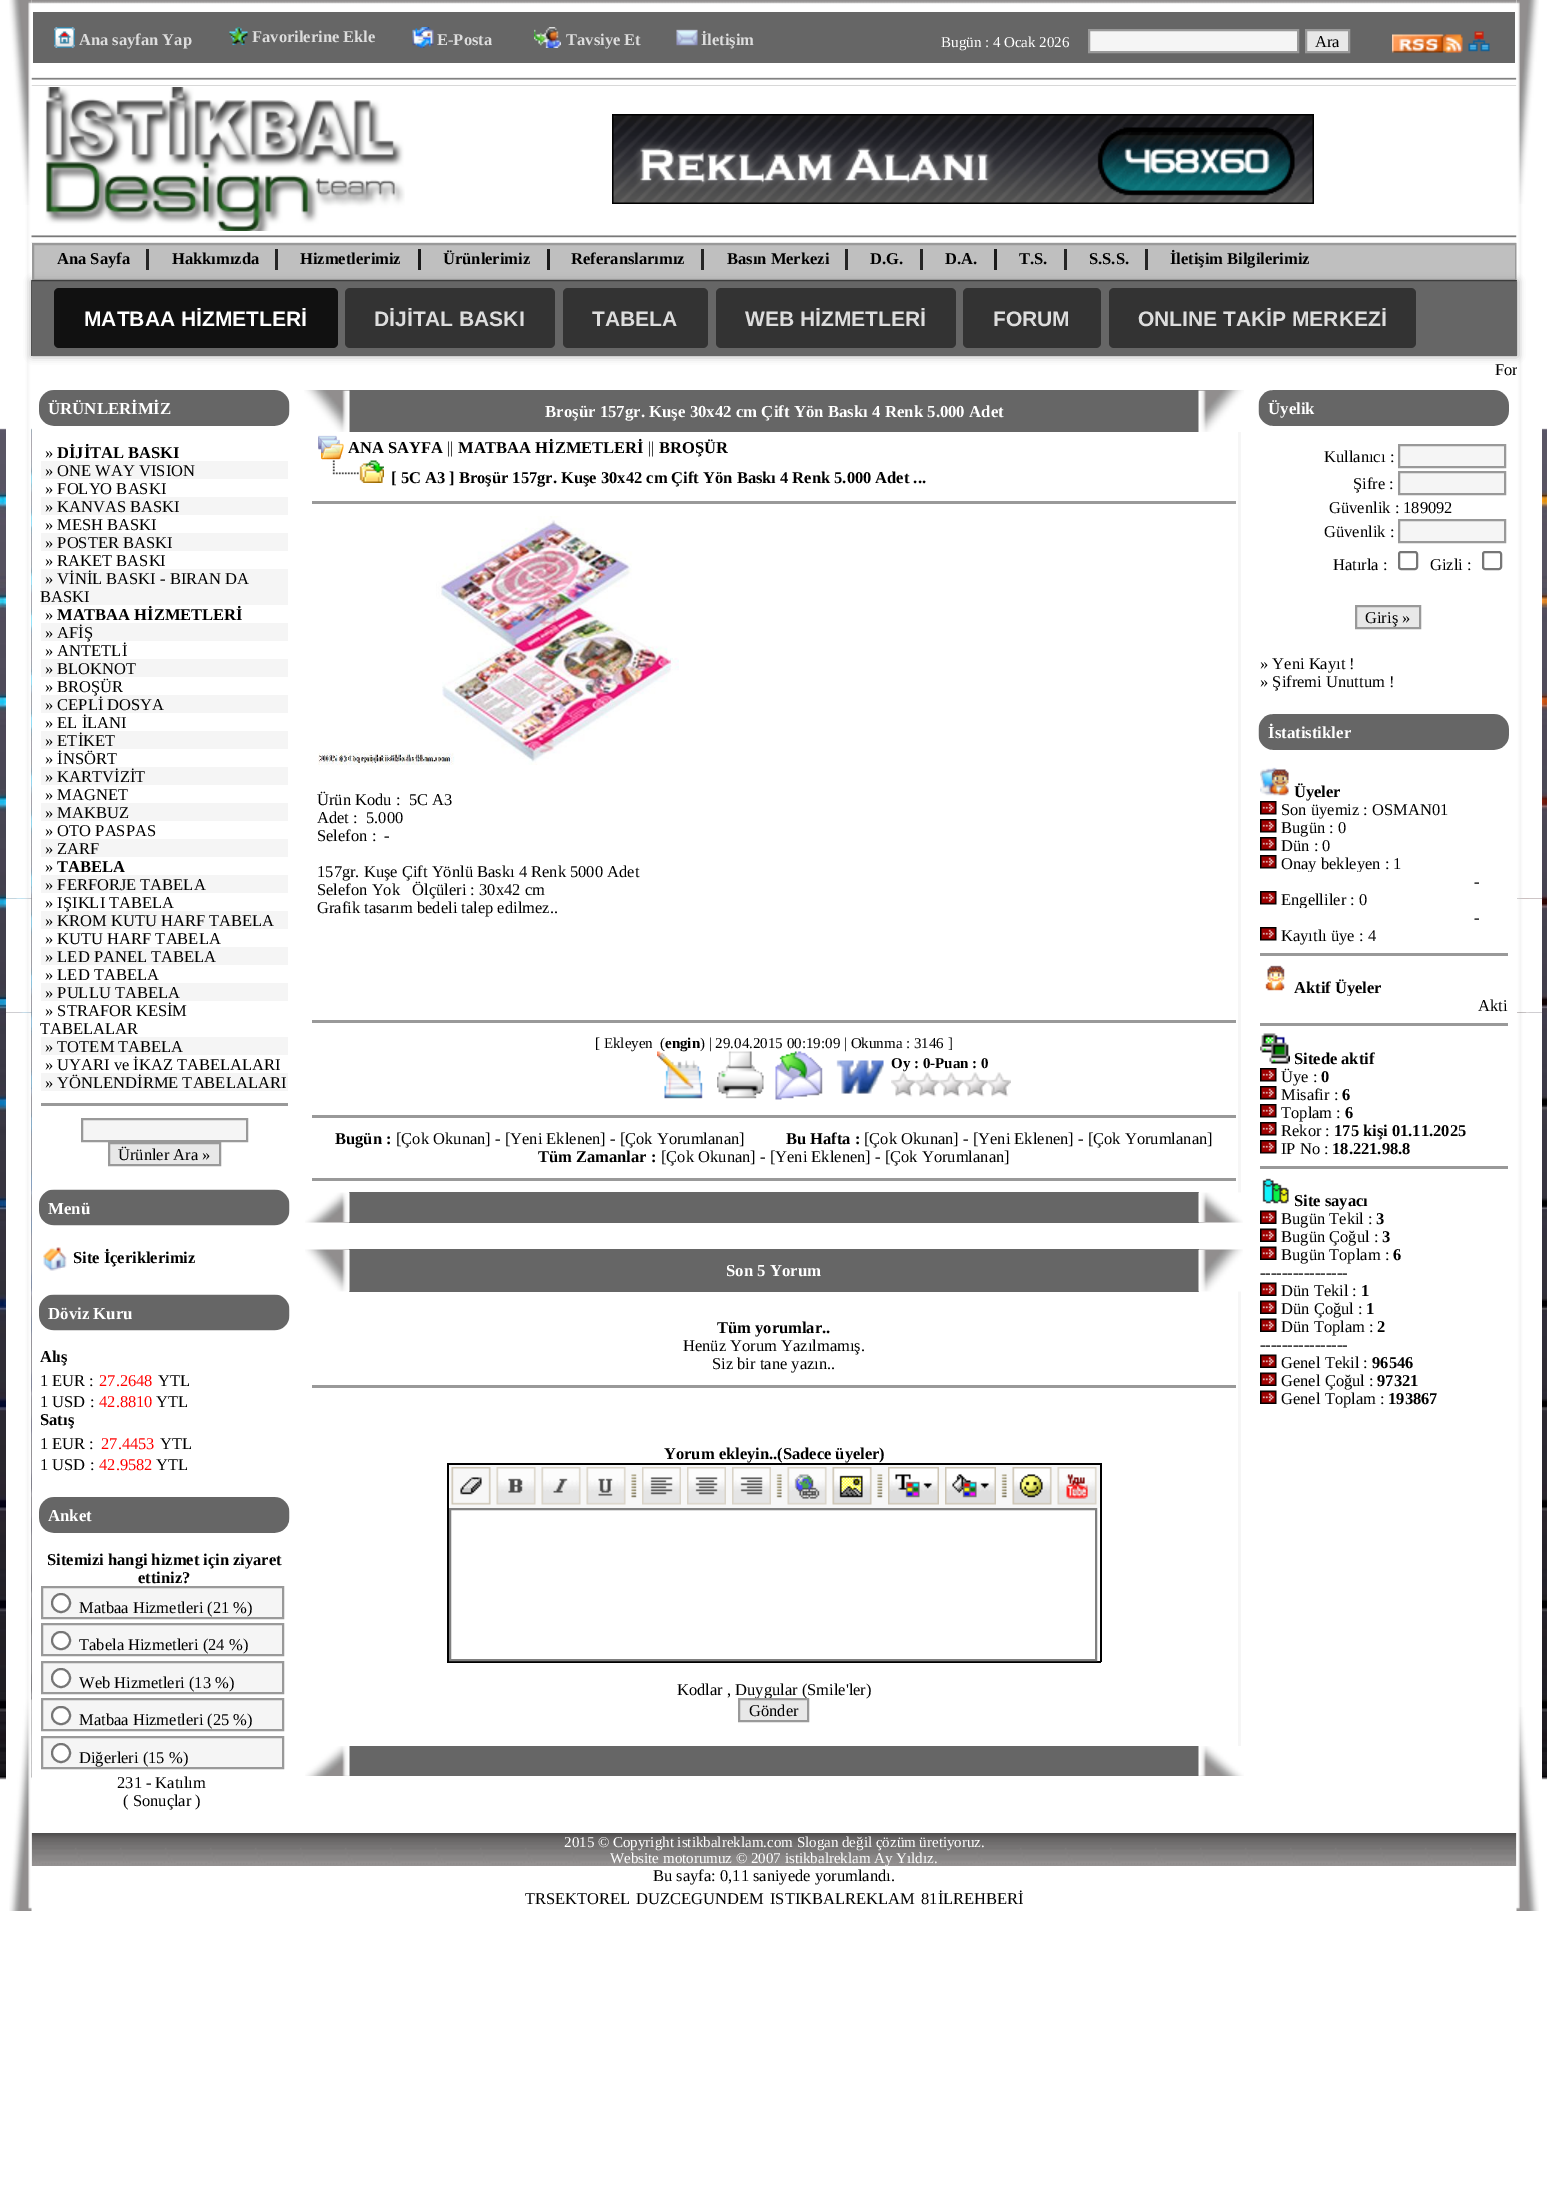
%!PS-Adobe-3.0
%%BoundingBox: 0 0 1547 2207
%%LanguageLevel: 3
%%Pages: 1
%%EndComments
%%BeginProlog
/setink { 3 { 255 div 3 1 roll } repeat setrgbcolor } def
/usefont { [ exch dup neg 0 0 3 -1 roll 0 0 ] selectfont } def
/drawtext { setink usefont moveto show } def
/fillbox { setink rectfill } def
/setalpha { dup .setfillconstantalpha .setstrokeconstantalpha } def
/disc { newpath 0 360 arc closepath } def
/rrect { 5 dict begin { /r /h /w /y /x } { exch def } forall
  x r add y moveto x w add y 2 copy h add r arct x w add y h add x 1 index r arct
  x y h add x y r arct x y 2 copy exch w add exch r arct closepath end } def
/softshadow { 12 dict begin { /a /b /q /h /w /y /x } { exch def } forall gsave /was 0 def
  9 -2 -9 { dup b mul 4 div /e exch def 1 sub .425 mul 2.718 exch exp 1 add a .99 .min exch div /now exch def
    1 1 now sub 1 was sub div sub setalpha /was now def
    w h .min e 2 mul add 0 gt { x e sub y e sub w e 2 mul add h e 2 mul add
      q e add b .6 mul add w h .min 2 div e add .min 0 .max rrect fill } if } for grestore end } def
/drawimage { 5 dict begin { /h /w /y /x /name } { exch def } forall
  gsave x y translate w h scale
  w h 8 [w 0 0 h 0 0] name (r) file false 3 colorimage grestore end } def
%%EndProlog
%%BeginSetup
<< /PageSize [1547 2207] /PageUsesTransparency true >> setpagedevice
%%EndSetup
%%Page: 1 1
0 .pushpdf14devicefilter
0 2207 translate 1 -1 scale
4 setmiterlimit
0 0 1547 2207 255 255 255 fillbox
(assets/img1.rgb) 0 428 1547 1352 drawimage
(assets/img2.rgb) 6 0 26 899 drawimage
(assets/img4.rgb) 31 0 1486 4 drawimage
(assets/img12.rgb) 31 77 1486 9 drawimage
(assets/img3.rgb) 9 0 23 205 drawimage
32 428 1485 1352 255 255 255 fillbox
33 12 1482 51 102 102 102 fillbox
(assets/img5.rgb) 54 27 21 21 drawimage
(Ana sayfan Yap) 79 45 /LiberationSerif-Bold 16.5 221 221 221 drawtext
(assets/img6.rgb) 229 27 19 18 drawimage
(Favorilerine Ekle) 252 42 /LiberationSerif-Bold 16.5 221 221 221 drawtext
(assets/img7.rgb) 412 27 22 21 drawimage
(E-Posta) 437 45 /LiberationSerif-Bold 16.5 221 221 221 drawtext
(assets/img8.rgb) 534 27 27 21 drawimage
(Tavsiye Et) 566 45 /LiberationSerif-Bold 16.5 221 221 221 drawtext
(assets/img9.rgb) 676 29 22 17 drawimage
(İletişim) 701 45 /LiberationSerif-Bold 16.5 221 221 221 drawtext
(Bugün : 4 Ocak 2026) 941 47 /LiberationSerif-Regular 15 255 255 255 drawtext
245 245 245 setink
1089 30 moveto 1298 30 lineto 1298 52 lineto 1089 52 lineto closepath gsave fill grestore
153 153 153 setink
2 setlinewidth
stroke
232 232 232 setink
1306 30 moveto 1349 30 lineto 1349 52 lineto 1306 52 lineto closepath gsave fill grestore
153 153 153 setink
stroke
(Ara) 1315 47 /LiberationSerif-Regular 16.5 0 0 0 drawtext
(assets/img10.rgb) 1392 34 71 19 drawimage
(assets/img11.rgb) 1468 31 22 21 drawimage
(assets/img13.rgb) 45 87 360 144 drawimage
(assets/img14.rgb) 612 114 702 90 drawimage
(assets/img15.rgb) 31 235 1486 8 drawimage
191 191 191 setink
33 244 moveto 1516 244 lineto 1516 280 lineto 33 280 lineto closepath gsave fill grestore
153 153 153 setink
stroke
(Ana Sayfa) 57 264 /LiberationSerif-Bold 16.5 0 0 0 drawtext
146 249 3 21 36 36 36 fillbox
(Hakkımızda) 172 264 /LiberationSerif-Bold 16.5 0 0 0 drawtext
275 249 3 21 36 36 36 fillbox
(Hizmetlerimiz) 300 264 /LiberationSerif-Bold 16.5 0 0 0 drawtext
418 249 3 21 25 25 25 fillbox
(Ürünlerimiz) 443 264 /LiberationSerif-Bold 16.5 0 0 0 drawtext
547 249 3 21 25 25 25 fillbox
(Referanslarımız) 571 264 /LiberationSerif-Bold 16.5 0 0 0 drawtext
701 249 3 21 36 36 36 fillbox
(Basın Merkezi) 727 264 /LiberationSerif-Bold 16.5 0 0 0 drawtext
845 249 3 21 36 36 36 fillbox
(D.G.) 870 264 /LiberationSerif-Bold 16.5 0 0 0 drawtext
920 249 3 21 36 36 36 fillbox
(D.A.) 945 264 /LiberationSerif-Bold 16.5 0 0 0 drawtext
994 249 3 21 25 25 25 fillbox
(T.S.) 1019 264 /LiberationSerif-Bold 16.5 0 0 0 drawtext
1064 249 3 21 36 36 36 fillbox
(S.S.S.) 1089 264 /LiberationSerif-Bold 16.5 0 0 0 drawtext
1145 249 3 21 36 36 36 fillbox
(İletişim Bilgilerimiz) 1170 264 /LiberationSerif-Bold 16.5 0 0 0 drawtext
(assets/img59.rgb) 1516 0 26 899 drawimage
gsave
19 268 moveto 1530 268 lineto 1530 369 lineto 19 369 lineto closepath 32 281 moveto 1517 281 lineto 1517 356 lineto 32 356 lineto closepath eoclip newpath
153 153 153 setink
32 281 1485 75 0 4 1 softshadow
grestore
0.6 setalpha
31 280 1486 76 0 0 0 fillbox
1 setalpha
17 17 17 setink
54 288 284 60 5 rrect fill
(MATBAA HİZMETLERİ) 84 326 /LiberationSans-Bold 21 255 255 255 drawtext
51 51 51 setink
345 288 210 60 5 rrect fill
(DİJİTAL BASKI) 374 326 /LiberationSans-Bold 21 221 221 221 drawtext
51 51 51 setink
563 288 145 60 5 rrect fill
(TABELA) 592 326 /LiberationSans-Bold 21 221 221 221 drawtext
51 51 51 setink
716 288 240 60 5 rrect fill
(WEB HİZMETLERİ) 745 326 /LiberationSans-Bold 21 221 221 221 drawtext
51 51 51 setink
963 288 138 60 5 rrect fill
(FORUM) 993 326 /LiberationSans-Bold 21 221 221 221 drawtext
51 51 51 setink
1109 288 307 60 5 rrect fill
(ONLINE TAKİP MERKEZİ) 1138 326 /LiberationSans-Bold 21 221 221 221 drawtext
gsave
32 360 1485 18 rectclip
(For) 1495 375 /LiberationSerif-Regular 16.5 0 0 0 drawtext
grestore
(assets/img16.rgb) 39 390 251 36 drawimage
(ÜRÜNLERİMİZ) 48 414 /LiberationSerif-Bold 16.8 255 255 255 drawtext
(») 45 458 /LiberationSerif-Regular 16.5 0 0 0 drawtext
(DİJİTAL BASKI) 57 458 /LiberationSerif-Bold 16.5 0 0 0 drawtext
41 461 247 18 245 245 245 fillbox
(» ONE WAY VISION) 45 476 /LiberationSerif-Regular 16.5 0 0 0 drawtext
(» FOLYO BASKI) 45 494 /LiberationSerif-Regular 16.5 0 0 0 drawtext
41 497 247 18 245 245 245 fillbox
(» KANVAS BASKI) 45 512 /LiberationSerif-Regular 16.5 0 0 0 drawtext
(» MESH BASKI) 45 530 /LiberationSerif-Regular 16.5 0 0 0 drawtext
41 533 247 18 245 245 245 fillbox
(» POSTER BASKI) 45 548 /LiberationSerif-Regular 16.5 0 0 0 drawtext
(» RAKET BASKI) 45 566 /LiberationSerif-Regular 16.5 0 0 0 drawtext
41 569 247 36 245 245 245 fillbox
(» VİNİL BASKI - BIRAN DA) 45 584 /LiberationSerif-Regular 16.5 0 0 0 drawtext
(BASKI) 40 602 /LiberationSerif-Regular 16.5 0 0 0 drawtext
(») 45 620 /LiberationSerif-Regular 16.5 0 0 0 drawtext
(MATBAA HİZMETLERİ) 57 620 /LiberationSerif-Bold 16.5 0 0 0 drawtext
41 623 247 18 245 245 245 fillbox
(» AFİŞ) 45 638 /LiberationSerif-Regular 16.5 0 0 0 drawtext
(» ANTETLİ) 45 656 /LiberationSerif-Regular 16.5 0 0 0 drawtext
41 659 247 18 245 245 245 fillbox
(» BLOKNOT) 45 674 /LiberationSerif-Regular 16.5 0 0 0 drawtext
41 695 247 18 245 245 245 fillbox
(» BROŞÜR) 45 692 /LiberationSerif-Regular 16.5 0 0 0 drawtext
(» CEPLİ DOSYA) 45 710 /LiberationSerif-Regular 16.5 0 0 0 drawtext
(» EL İLANI) 45 728 /LiberationSerif-Regular 16.5 0 0 0 drawtext
41 731 247 18 245 245 245 fillbox
(» ETİKET) 45 746 /LiberationSerif-Regular 16.5 0 0 0 drawtext
(» İNSÖRT) 45 764 /LiberationSerif-Regular 16.5 0 0 0 drawtext
41 767 247 18 245 245 245 fillbox
(» KARTVİZİT) 45 782 /LiberationSerif-Regular 16.5 0 0 0 drawtext
(» MAGNET) 45 800 /LiberationSerif-Regular 16.5 0 0 0 drawtext
41 803 247 18 245 245 245 fillbox
(» MAKBUZ) 45 818 /LiberationSerif-Regular 16.5 0 0 0 drawtext
(» OTO PASPAS) 45 836 /LiberationSerif-Regular 16.5 0 0 0 drawtext
41 839 247 18 245 245 245 fillbox
(» ZARF) 45 854 /LiberationSerif-Regular 16.5 0 0 0 drawtext
(») 45 872 /LiberationSerif-Regular 16.5 0 0 0 drawtext
(TABELA) 57 872 /LiberationSerif-Bold 16.5 0 0 0 drawtext
41 875 247 18 245 245 245 fillbox
(» FERFORJE TABELA) 45 890 /LiberationSerif-Regular 16.5 0 0 0 drawtext
41 911 247 18 245 245 245 fillbox
(» IŞIKLI TABELA) 45 908 /LiberationSerif-Regular 16.5 0 0 0 drawtext
(» KROM KUTU HARF TABELA) 45 926 /LiberationSerif-Regular 16.5 0 0 0 drawtext
(» KUTU HARF TABELA) 45 944 /LiberationSerif-Regular 16.5 0 0 0 drawtext
41 947 247 18 245 245 245 fillbox
(» LED PANEL TABELA) 45 962 /LiberationSerif-Regular 16.5 0 0 0 drawtext
(» LED TABELA) 45 980 /LiberationSerif-Regular 16.5 0 0 0 drawtext
41 983 247 18 245 245 245 fillbox
(» PULLU TABELA) 45 998 /LiberationSerif-Regular 16.5 0 0 0 drawtext
(» STRAFOR KESİM) 45 1016 /LiberationSerif-Regular 16.5 0 0 0 drawtext
(TABELALAR) 40 1034 /LiberationSerif-Regular 16.5 0 0 0 drawtext
41 1037 247 18 245 245 245 fillbox
(» TOTEM TABELA) 45 1052 /LiberationSerif-Regular 16.5 0 0 0 drawtext
(» UYARI ve İKAZ TABELALARI) 45 1070 /LiberationSerif-Regular 16.5 0 0 0 drawtext
41 1073 247 18 245 245 245 fillbox
(» YÖNLENDİRME TABELALARI) 45 1088 /LiberationSerif-Regular 16.5 0 0 0 drawtext
41 1103 247 3 153 153 153 fillbox
245 245 245 setink
82 1119 moveto 247 1119 lineto 247 1141 lineto 82 1141 lineto closepath gsave fill grestore
153 153 153 setink
stroke
232 232 232 setink
109 1143 moveto 220 1143 lineto 220 1165 lineto 109 1165 lineto closepath gsave fill grestore
153 153 153 setink
stroke
(Ürünler Ara ») 118 1160 /LiberationSerif-Regular 16.5 0 0 0 drawtext
(assets/img17.rgb) 39 1189 251 37 drawimage
(Menü) 48 1214 /LiberationSerif-Bold 16.8 255 255 255 drawtext
(assets/img18.rgb) 43 1247 24 24 drawimage
(Site İçeriklerimiz) 73 1263 /LiberationSerif-Bold 16.5 0 0 0 drawtext
(assets/img17.rgb) 39 1294 251 37 drawimage
(Döviz Kuru) 48 1319 /LiberationSerif-Bold 16.8 255 255 255 drawtext
(Alış) 40 1362 /LiberationSerif-Bold 16.5 0 0 0 drawtext
(1 EUR :) 40 1386 /LiberationSerif-Regular 16.5 0 0 0 drawtext
(27.2648) 99 1386 /LiberationSerif-Regular 16.5 255 0 0 drawtext
(YTL) 158 1386 /LiberationSerif-Regular 16.5 0 0 0 drawtext
(1 USD :) 40 1407 /LiberationSerif-Regular 16.5 0 0 0 drawtext
(42.8810) 99 1407 /LiberationSerif-Regular 16.5 255 0 0 drawtext
(YTL) 156 1407 /LiberationSerif-Regular 16.5 0 0 0 drawtext
(Satış) 40 1425 /LiberationSerif-Bold 16.5 0 0 0 drawtext
(1 EUR :) 40 1449 /LiberationSerif-Regular 16.5 0 0 0 drawtext
(27.4453) 101 1449 /LiberationSerif-Regular 16.5 255 0 0 drawtext
(YTL) 160 1449 /LiberationSerif-Regular 16.5 0 0 0 drawtext
(1 USD :) 40 1470 /LiberationSerif-Regular 16.5 0 0 0 drawtext
(42.9582) 99 1470 /LiberationSerif-Regular 16.5 255 0 0 drawtext
(YTL) 156 1470 /LiberationSerif-Regular 16.5 0 0 0 drawtext
(assets/img19.rgb) 39 1497 251 36 drawimage
(Anket) 48 1521 /LiberationSerif-Bold 16.8 255 255 255 drawtext
(Sitemizi hangi hizmet için ziyaret) 47 1565 /LiberationSerif-Bold 16.5 0 0 0 drawtext
(ettiniz?) 138 1583 /LiberationSerif-Bold 16.5 0 0 0 drawtext
245 245 245 setink
42 1587 moveto 283 1587 lineto 283 1618 lineto 42 1618 lineto closepath gsave fill grestore
153 153 153 setink
stroke
255 255 255 setink
61 1603 9 disc gsave fill grestore
118 118 118 setink
stroke
(Matbaa Hizmetleri \(21 %\)) 79 1613 /LiberationSerif-Regular 16.5 0 0 0 drawtext
245 245 245 setink
42 1624 moveto 283 1624 lineto 283 1655 lineto 42 1655 lineto closepath gsave fill grestore
153 153 153 setink
stroke
255 255 255 setink
52 1632 18 17 8.5 rrect gsave fill grestore
118 118 118 setink
stroke
(Tabela Hizmetleri \(24 %\)) 79 1650 /LiberationSerif-Regular 16.5 0 0 0 drawtext
245 245 245 setink
42 1662 moveto 283 1662 lineto 283 1693 lineto 42 1693 lineto closepath gsave fill grestore
153 153 153 setink
stroke
255 255 255 setink
61 1678 9 disc gsave fill grestore
118 118 118 setink
stroke
(Web Hizmetleri \(13 %\)) 79 1688 /LiberationSerif-Regular 16.5 0 0 0 drawtext
245 245 245 setink
42 1699 moveto 283 1699 lineto 283 1730 lineto 42 1730 lineto closepath gsave fill grestore
153 153 153 setink
stroke
255 255 255 setink
52 1707 18 17 8.5 rrect gsave fill grestore
118 118 118 setink
stroke
(Matbaa Hizmetleri \(25 %\)) 79 1725 /LiberationSerif-Regular 16.5 0 0 0 drawtext
245 245 245 setink
42 1737 moveto 283 1737 lineto 283 1768 lineto 42 1768 lineto closepath gsave fill grestore
153 153 153 setink
stroke
255 255 255 setink
61 1753 9 disc gsave fill grestore
118 118 118 setink
stroke
(Diğerleri \(15 %\)) 79 1763 /LiberationSerif-Regular 16.5 0 0 0 drawtext
(231 - Katılım) 117 1788 /LiberationSerif-Regular 16.5 0 0 0 drawtext
(\( Sonuçlar \)) 123 1806 /LiberationSerif-Regular 16.5 0 0 0 drawtext
349 390 850 42 102 102 102 fillbox
(assets/img20.rgb) 304 390 46 42 drawimage
(Broşür 157gr. Kuşe 30x42 cm Çift Yön Baskı 4 Renk 5.000 Adet) 545 417 /LiberationSerif-Bold 16.8 255 255 255 drawtext
(assets/img21.rgb) 1198 390 46 42 drawimage
(assets/img22.rgb) 318 435 26 25 drawimage
(ANA SAYFA) 348 453 /LiberationSerif-Bold 16.5 0 0 0 drawtext
(||) 447 453 /LiberationSerif-Regular 16.5 0 0 0 drawtext
(MATBAA HİZMETLERİ) 458 453 /LiberationSerif-Bold 16.5 0 0 0 drawtext
(||) 648 453 /LiberationSerif-Regular 16.5 0 0 0 drawtext
(BROŞÜR) 659 453 /LiberationSerif-Bold 16.5 0 0 0 drawtext
(assets/img23.rgb) 332 460 52 23 drawimage
([ 5C A3 ] Broşür 157gr. Kuşe 30x42 cm Çift Yön Baskı 4 Renk 5.000 Adet ...) 391 483 /LiberationSerif-Bold 16.5 0 0 0 drawtext
312 501 924 3 153 153 153 fillbox
(assets/img24.rgb) 318 516 361 249 drawimage
(Ürün Kodu :  5C A3) 317 805 /LiberationSerif-Regular 16.5 0 0 0 drawtext
(Adet :  5.000) 317 823 /LiberationSerif-Regular 16.5 0 0 0 drawtext
(Selefon :  -) 317 841 /LiberationSerif-Regular 16.5 0 0 0 drawtext
(157gr. Kuşe Çift Yönlü Baskı 4 Renk 5000 Adet) 317 877 /LiberationSerif-Regular 16.5 0 0 0 drawtext
(Selefon Yok   Ölçüleri : 30x42 cm) 317 895 /LiberationSerif-Regular 16.5 0 0 0 drawtext
(Grafik tasarım bedeli talep edilmez..) 317 913 /LiberationSerif-Regular 16.5 0 0 0 drawtext
312 1020 924 3 153 153 153 fillbox
([ Ekleyen  \() 595 1048 /LiberationSerif-Regular 15 0 0 0 drawtext
(engin) 665 1048 /LiberationSerif-Bold 15 0 0 0 drawtext
(\) | 29.04.2015 00:19:09 | Okunma : 3146 ]) 700 1048 /LiberationSerif-Regular 15 0 0 0 drawtext
(assets/img25.rgb) 657 1051 46 48 drawimage
(assets/img26.rgb) 717 1051 47 48 drawimage
(assets/img27.rgb) 775 1051 48 49 drawimage
(assets/img28.rgb) 836 1060 48 34 drawimage
(Oy : 0-Puan : 0) 891 1068 /LiberationSerif-Bold 15 0 0 0 drawtext
(assets/img29.rgb) 891 1072 120 25 drawimage
312 1115 924 3 153 153 153 fillbox
(Bugün :) 335 1144 /LiberationSerif-Bold 16.5 0 0 0 drawtext
([Çok Okunan] - [Yeni Eklenen] - [Çok Yorumlanan]) 396 1144 /LiberationSerif-Regular 16.5 0 0 0 drawtext
(Bu Hafta :) 786 1144 /LiberationSerif-Bold 16.5 0 0 0 drawtext
([Çok Okunan] - [Yeni Eklenen] - [Çok Yorumlanan]) 864 1144 /LiberationSerif-Regular 16.5 0 0 0 drawtext
(Tüm Zamanlar :) 538 1162 /LiberationSerif-Bold 16.5 0 0 0 drawtext
([Çok Okunan] - [Yeni Eklenen] - [Çok Yorumlanan]) 661 1162 /LiberationSerif-Regular 16.5 0 0 0 drawtext
312 1178 924 3 153 153 153 fillbox
1238 432 3 761 246 246 246 fillbox
349 1192 850 31 102 102 102 fillbox
(assets/img30.rgb) 305 1192 45 31 drawimage
(assets/img31.rgb) 1198 1192 45 31 drawimage
349 1249 850 43 102 102 102 fillbox
(assets/img32.rgb) 305 1249 45 43 drawimage
(Son 5 Yorum) 726 1276 /LiberationSerif-Bold 16.8 255 255 255 drawtext
1238 1291 3 455 246 246 246 fillbox
(assets/img33.rgb) 1198 1249 45 43 drawimage
(Tüm yorumlar..) 717 1333 /LiberationSerif-Bold 16.5 0 0 0 drawtext
(Henüz Yorum Yazılmamış.) 683 1351 /LiberationSerif-Regular 16.5 0 0 0 drawtext
(Siz bir tane yazın..) 712 1369 /LiberationSerif-Regular 16.5 0 0 0 drawtext
312 1385 924 3 153 153 153 fillbox
(Yorum ekleyin..\(Sadece üyeler\)) 664 1459 /LiberationSerif-Bold 16.5 0 0 0 drawtext
447 1463 654 2 0 0 0 fillbox
1100 1463 2 199 0 0 0 fillbox
447 1661 654 2 0 0 0 fillbox
447 1463 2 199 0 0 0 fillbox
449 1465 651 43 247 247 247 fillbox
(assets/img34.rgb) 451 1467 40 38 drawimage
(assets/img35.rgb) 496 1467 40 38 drawimage
(assets/img36.rgb) 541 1467 40 38 drawimage
(assets/img37.rgb) 586 1467 40 38 drawimage
(assets/img38.rgb) 631 1474 6 24 drawimage
(assets/img39.rgb) 642 1467 39 38 drawimage
(assets/img40.rgb) 687 1467 39 38 drawimage
(assets/img41.rgb) 732 1467 39 38 drawimage
(assets/img42.rgb) 776 1474 6 24 drawimage
(assets/img43.rgb) 787 1467 40 38 drawimage
(assets/img44.rgb) 832 1467 40 38 drawimage
(assets/img38.rgb) 877 1474 6 24 drawimage
(assets/img45.rgb) 888 1467 51 38 drawimage
(assets/img46.rgb) 945 1467 51 38 drawimage
(assets/img42.rgb) 1001 1474 6 24 drawimage
(assets/img47.rgb) 1012 1467 40 38 drawimage
(assets/img48.rgb) 1057 1467 40 38 drawimage
128 128 128 setink
450 1509 646 151 rectstroke
(Kodlar , Duygular \(Smile'ler\)) 677 1695 /LiberationSerif-Regular 16.5 0 0 0 drawtext
232 232 232 setink
739 1699 moveto 808 1699 lineto 808 1721 lineto 739 1721 lineto closepath gsave fill grestore
153 153 153 setink
stroke
(Gönder) 749 1716 /LiberationSerif-Regular 16.5 0 0 0 drawtext
349 1746 850 30 102 102 102 fillbox
(assets/img49.rgb) 305 1746 45 30 drawimage
(assets/img50.rgb) 1198 1746 46 30 drawimage
(assets/img51.rgb) 1258 390 251 36 drawimage
(Üyelik) 1268 414 /LiberationSerif-Bold 16.8 255 255 255 drawtext
(Kullanıcı :) 1324 462 /LiberationSerif-Regular 16.5 0 0 0 drawtext
245 245 245 setink
1399 445 moveto 1505 445 lineto 1505 467 lineto 1399 467 lineto closepath gsave fill grestore
153 153 153 setink
stroke
(Şifre :) 1353 489 /LiberationSerif-Regular 16.5 0 0 0 drawtext
245 245 245 setink
1399 472 moveto 1505 472 lineto 1505 494 lineto 1399 494 lineto closepath gsave fill grestore
153 153 153 setink
stroke
(Güvenlik : 189092) 1329 513 /LiberationSerif-Regular 16.5 0 0 0 drawtext
(Güvenlik :) 1324 537 /LiberationSerif-Regular 16.5 0 0 0 drawtext
245 245 245 setink
1399 520 moveto 1505 520 lineto 1505 542 lineto 1399 542 lineto closepath gsave fill grestore
153 153 153 setink
stroke
(Hatırla :) 1333 570 /LiberationSerif-Regular 16.5 0 0 0 drawtext
118 118 118 setink
1399 552 18 17 2 rrect stroke
(Gizli :) 1430 570 /LiberationSerif-Regular 16.5 0 0 0 drawtext
118 118 118 setink
1483 552 18 17 2 rrect stroke
232 232 232 setink
1356 606 moveto 1420 606 lineto 1420 628 lineto 1356 628 lineto closepath gsave fill grestore
153 153 153 setink
stroke
(Giriş ») 1365 623 /LiberationSerif-Regular 16.5 0 0 0 drawtext
(» Yeni Kayıt !) 1260 669 /LiberationSerif-Regular 16.5 0 0 0 drawtext
(» Şifremi Unuttum !) 1260 687 /LiberationSerif-Regular 16.5 0 0 0 drawtext
(assets/img51.rgb) 1258 714 251 36 drawimage
(İstatistikler) 1268 738 /LiberationSerif-Bold 16.8 255 255 255 drawtext
(assets/img52.rgb) 1260 767 29 29 drawimage
(Üyeler) 1294 797 /LiberationSerif-Bold 16.5 0 0 0 drawtext
(assets/img53.rgb) 1260 801 17 14 drawimage
(Son üyemiz : OSMAN01) 1281 815 /LiberationSerif-Regular 16.5 0 0 0 drawtext
(assets/img53.rgb) 1260 819 17 14 drawimage
(Bugün : 0) 1281 833 /LiberationSerif-Regular 16.5 0 0 0 drawtext
(assets/img53.rgb) 1260 837 17 14 drawimage
(Dün : 0) 1281 851 /LiberationSerif-Regular 16.5 0 0 0 drawtext
(assets/img53.rgb) 1260 855 17 14 drawimage
(Onay bekleyen : 1) 1281 869 /LiberationSerif-Regular 16.5 0 0 0 drawtext
1308 872 52 1 255 255 255 fillbox
(-) 1474 887 /LiberationSerif-Regular 16.5 0 0 0 drawtext
(assets/img53.rgb) 1260 891 17 14 drawimage
(Engelliler : 0) 1281 905 /LiberationSerif-Regular 16.5 0 0 0 drawtext
1300 908 6 1 255 255 255 fillbox
(-) 1474 923 /LiberationSerif-Regular 16.5 0 0 0 drawtext
(assets/img53.rgb) 1260 927 17 14 drawimage
(Kayıtlı üye : 4) 1281 941 /LiberationSerif-Regular 16.5 0 0 0 drawtext
1260 953 248 3 153 153 153 fillbox
(assets/img54.rgb) 1265 965 20 26 drawimage
(Aktif Üyeler) 1294 993 /LiberationSerif-Bold 16.5 0 0 0 drawtext
1347 996 3 1 255 255 255 fillbox
(Akti) 1478 1011 /LiberationSerif-Regular 16.5 0 0 0 drawtext
1260 1023 248 3 153 153 153 fillbox
(assets/img55.rgb) 1260 1033 30 31 drawimage
(Sitede aktif) 1294 1064 /LiberationSerif-Bold 16.5 0 0 0 drawtext
(assets/img53.rgb) 1260 1068 17 14 drawimage
(Üye :) 1281 1082 /LiberationSerif-Regular 16.5 0 0 0 drawtext
(0) 1321 1082 /LiberationSerif-Bold 16.5 0 0 0 drawtext
(assets/img53.rgb) 1260 1086 17 14 drawimage
(Misafir :) 1281 1100 /LiberationSerif-Regular 16.5 0 0 0 drawtext
(6) 1342 1100 /LiberationSerif-Bold 16.5 0 0 0 drawtext
(assets/img53.rgb) 1260 1104 17 14 drawimage
(Toplam :) 1281 1118 /LiberationSerif-Regular 16.5 0 0 0 drawtext
(6) 1345 1118 /LiberationSerif-Bold 16.5 0 0 0 drawtext
(assets/img53.rgb) 1260 1122 17 14 drawimage
(Rekor :) 1281 1136 /LiberationSerif-Regular 16.5 0 0 0 drawtext
(175 kişi 01.11.2025) 1334 1136 /LiberationSerif-Bold 16.5 0 0 0 drawtext
(assets/img53.rgb) 1260 1140 17 14 drawimage
(IP No :) 1281 1154 /LiberationSerif-Regular 16.5 0 0 0 drawtext
(18.221.98.8) 1332 1154 /LiberationSerif-Bold 16.5 0 0 0 drawtext
1260 1166 248 3 153 153 153 fillbox
(assets/img56.rgb) 1262 1178 27 26 drawimage
(Site sayacı) 1294 1206 /LiberationSerif-Bold 16.5 0 0 0 drawtext
(assets/img57.rgb) 1260 1210 17 14 drawimage
(Bugün Tekil :) 1281 1224 /LiberationSerif-Regular 16.5 0 0 0 drawtext
(3) 1376 1224 /LiberationSerif-Bold 16.5 0 0 0 drawtext
(assets/img57.rgb) 1260 1228 17 14 drawimage
(Bugün Çoğul :) 1281 1242 /LiberationSerif-Regular 16.5 0 0 0 drawtext
(3) 1382 1242 /LiberationSerif-Bold 16.5 0 0 0 drawtext
(assets/img57.rgb) 1260 1246 17 14 drawimage
(Bugün Toplam :) 1281 1260 /LiberationSerif-Regular 16.5 0 0 0 drawtext
(6) 1393 1260 /LiberationSerif-Bold 16.5 0 0 0 drawtext
(----------------) 1260 1278 /LiberationSerif-Regular 16.5 0 0 0 drawtext
(assets/img57.rgb) 1260 1282 17 14 drawimage
(Dün Tekil :) 1281 1296 /LiberationSerif-Regular 16.5 0 0 0 drawtext
(1) 1361 1296 /LiberationSerif-Bold 16.5 0 0 0 drawtext
(assets/img57.rgb) 1260 1300 17 14 drawimage
(Dün Çoğul :) 1281 1314 /LiberationSerif-Regular 16.5 0 0 0 drawtext
(1) 1366 1314 /LiberationSerif-Bold 16.5 0 0 0 drawtext
(assets/img57.rgb) 1260 1318 17 14 drawimage
(Dün Toplam :) 1281 1332 /LiberationSerif-Regular 16.5 0 0 0 drawtext
(2) 1377 1332 /LiberationSerif-Bold 16.5 0 0 0 drawtext
(----------------) 1260 1350 /LiberationSerif-Regular 16.5 0 0 0 drawtext
(assets/img57.rgb) 1260 1354 17 14 drawimage
(Genel Tekil :) 1281 1368 /LiberationSerif-Regular 16.5 0 0 0 drawtext
(96546) 1372 1368 /LiberationSerif-Bold 16.5 0 0 0 drawtext
(assets/img57.rgb) 1260 1372 17 14 drawimage
(Genel Çoğul :) 1281 1386 /LiberationSerif-Regular 16.5 0 0 0 drawtext
(97321) 1377 1386 /LiberationSerif-Bold 16.5 0 0 0 drawtext
(assets/img57.rgb) 1260 1390 17 14 drawimage
(Genel Toplam :) 1281 1404 /LiberationSerif-Regular 16.5 0 0 0 drawtext
(193867) 1388 1404 /LiberationSerif-Bold 16.5 0 0 0 drawtext
(assets/img58.rgb) 31 1833 1486 33 drawimage
(2015 © Copyright istikbalreklam.com Slogan değil çözüm üretiyoruz.) 564 1847 /LiberationSerif-Regular 15 255 255 255 drawtext
(Website motorumuz © 2007 istikbalreklam Ay Yıldız.) 610 1863 /LiberationSerif-Regular 15 255 255 255 drawtext
(Bu sayfa: 0,11 saniyede yorumlandı.) 653 1881 /LiberationSerif-Regular 16.5 0 0 0 drawtext
(TRSEKTOREL) 525 1904 /LiberationSerif-Regular 16.5 0 0 0 drawtext
(DUZCEGUNDEM) 636 1904 /LiberationSerif-Regular 16.5 0 0 0 drawtext
(ISTIKBALREKLAM) 770 1904 /LiberationSerif-Regular 16.5 0 0 0 drawtext
(81İLREHBERİ) 921 1904 /LiberationSerif-Regular 16.5 0 0 0 drawtext
(assets/img60.rgb) 1516 0 23 204 drawimage
(assets/img61.rgb) 6 898 26 115 drawimage
(assets/img62.rgb) 1517 898 25 115 drawimage
(assets/img63.rgb) 6 1012 26 899 drawimage
(assets/img64.rgb) 9 1699 23 212 drawimage
(assets/img65.rgb) 1516 1012 26 899 drawimage
(assets/img66.rgb) 1516 1707 23 204 drawimage
.poppdf14devicefilter showpage
%%EOF
